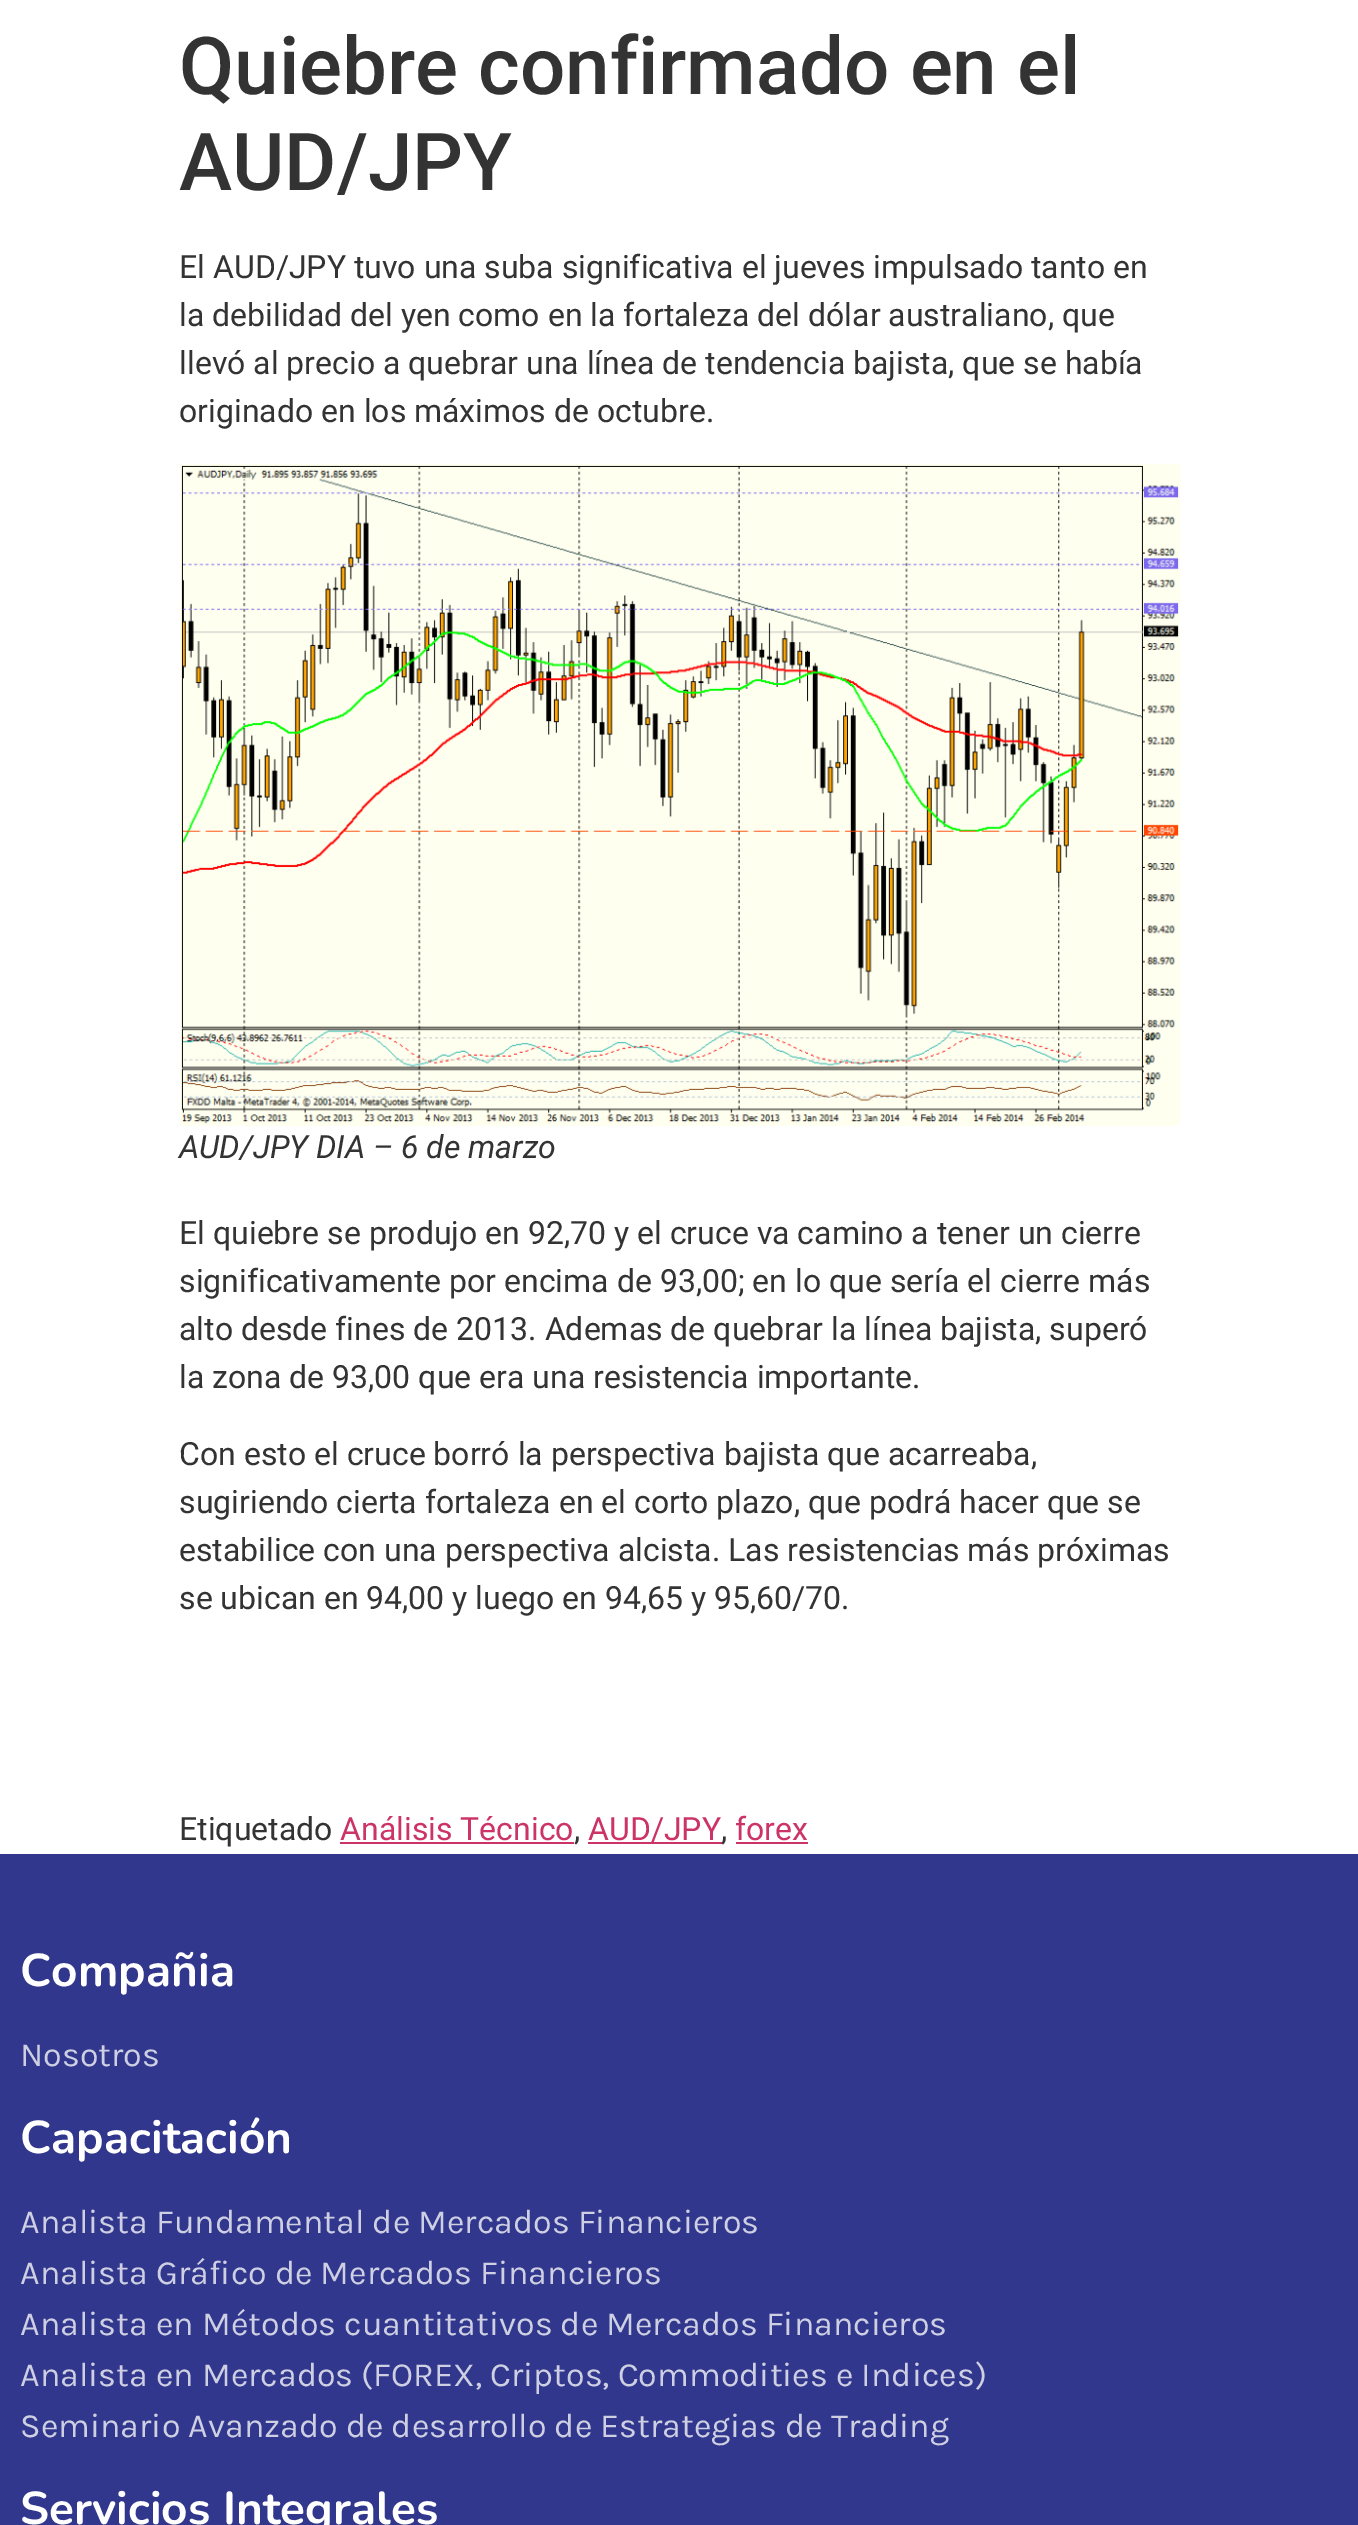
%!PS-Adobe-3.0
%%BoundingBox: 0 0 1358 2525
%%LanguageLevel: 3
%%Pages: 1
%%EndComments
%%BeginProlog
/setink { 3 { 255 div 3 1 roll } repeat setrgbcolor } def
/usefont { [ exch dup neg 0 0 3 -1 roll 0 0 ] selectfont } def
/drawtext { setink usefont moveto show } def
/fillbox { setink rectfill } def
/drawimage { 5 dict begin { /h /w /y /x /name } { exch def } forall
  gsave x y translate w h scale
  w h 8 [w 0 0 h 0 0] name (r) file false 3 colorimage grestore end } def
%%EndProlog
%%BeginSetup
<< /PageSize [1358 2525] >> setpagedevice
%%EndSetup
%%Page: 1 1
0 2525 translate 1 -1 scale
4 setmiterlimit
0 0 1358 2525 255 255 255 fillbox
(Quiebre confirmado en el) 179 94 /Roboto-Medium 80 51 51 51 drawtext
(AUD/JPY) 179 190 /Roboto-Medium 80 51 51 51 drawtext
(El AUD/JPY tuvo una suba significativa el jueves impulsado tanto en) 179 278 /Roboto-Regular 32 51 51 51 drawtext
(la debilidad del yen como en la fortaleza del dólar australiano, que) 179 326 /Roboto-Regular 32 51 51 51 drawtext
(llevó al precio a quebrar una línea de tendencia bajista, que se había) 179 374 /Roboto-Regular 32 51 51 51 drawtext
(originado en los máximos de octubre.) 179 422 /Roboto-Regular 32 51 51 51 drawtext
(assets/img1.rgb) 180 464 1000 662 drawimage
(AUD/JPY DIA – 6 de marzo) 179 1158 /Roboto-Italic 32 51 51 51 drawtext
(El quiebre se produjo en 92,70 y el cruce va camino a tener un cierre) 179 1244 /Roboto-Regular 32 51 51 51 drawtext
(significativamente por encima de 93,00; en lo que sería el cierre más) 179 1292 /Roboto-Regular 32 51 51 51 drawtext
(alto desde fines de 2013. Ademas de quebrar la línea bajista, superó) 179 1340 /Roboto-Regular 32 51 51 51 drawtext
(la zona de 93,00 que era una resistencia importante.) 179 1388 /Roboto-Regular 32 51 51 51 drawtext
(Con esto el cruce borró la perspectiva bajista que acarreaba,) 179 1465 /Roboto-Regular 32 51 51 51 drawtext
(sugiriendo cierta fortaleza en el corto plazo, que podrá hacer que se) 179 1513 /Roboto-Regular 32 51 51 51 drawtext
(estabilice con una perspectiva alcista. Las resistencias más próximas) 179 1561 /Roboto-Regular 32 51 51 51 drawtext
(se ubican en 94,00 y luego en 94,65 y 95,60/70.) 179 1609 /Roboto-Regular 32 51 51 51 drawtext
(Etiquetado) 179 1840 /Roboto-Regular 32 51 51 51 drawtext
(Análisis Técnico) 340 1840 /Roboto-Regular 32 204 51 102 drawtext
(,) 574 1840 /Roboto-Regular 32 51 51 51 drawtext
340 1842 234 2 204 51 102 fillbox
(AUD/JPY) 588 1840 /Roboto-Regular 32 204 51 102 drawtext
588 1842 134 2 204 51 102 fillbox
(,) 721 1840 /Roboto-Regular 32 51 51 51 drawtext
736 1842 72 2 204 51 102 fillbox
(forex) 735 1840 /Roboto-Regular 32 204 51 102 drawtext
0 1854 1358 671 49 55 140 fillbox
(Compañia) 20 1986 /Nunito-Bold 46 255 255 255 drawtext
(Nosotros) 20 2066 /Karla-Regular 34 206 207 227 drawtext
(Capacitación) 20 2153 /Nunito-Bold 46 255 255 255 drawtext
(Analista Fundamental de Mercados Financieros) 20 2233 /Karla-Regular 34 206 207 227 drawtext
(Analista Gráfico de Mercados Financieros) 20 2284 /Karla-Regular 34 206 207 227 drawtext
(Analista en Métodos cuantitativos de Mercados Financieros) 20 2335 /Karla-Regular 34 206 207 227 drawtext
(Analista en Mercados \(FOREX, Criptos, Commodities e Indices\)) 20 2386 /Karla-Regular 34 206 207 227 drawtext
(Seminario Avanzado de desarrollo de Estrategias de Trading) 20 2437 /Karla-Regular 34 206 207 227 drawtext
(Servicios Integrales) 20 2524 /Nunito-Bold 46 255 255 255 drawtext
showpage
%%EOF
